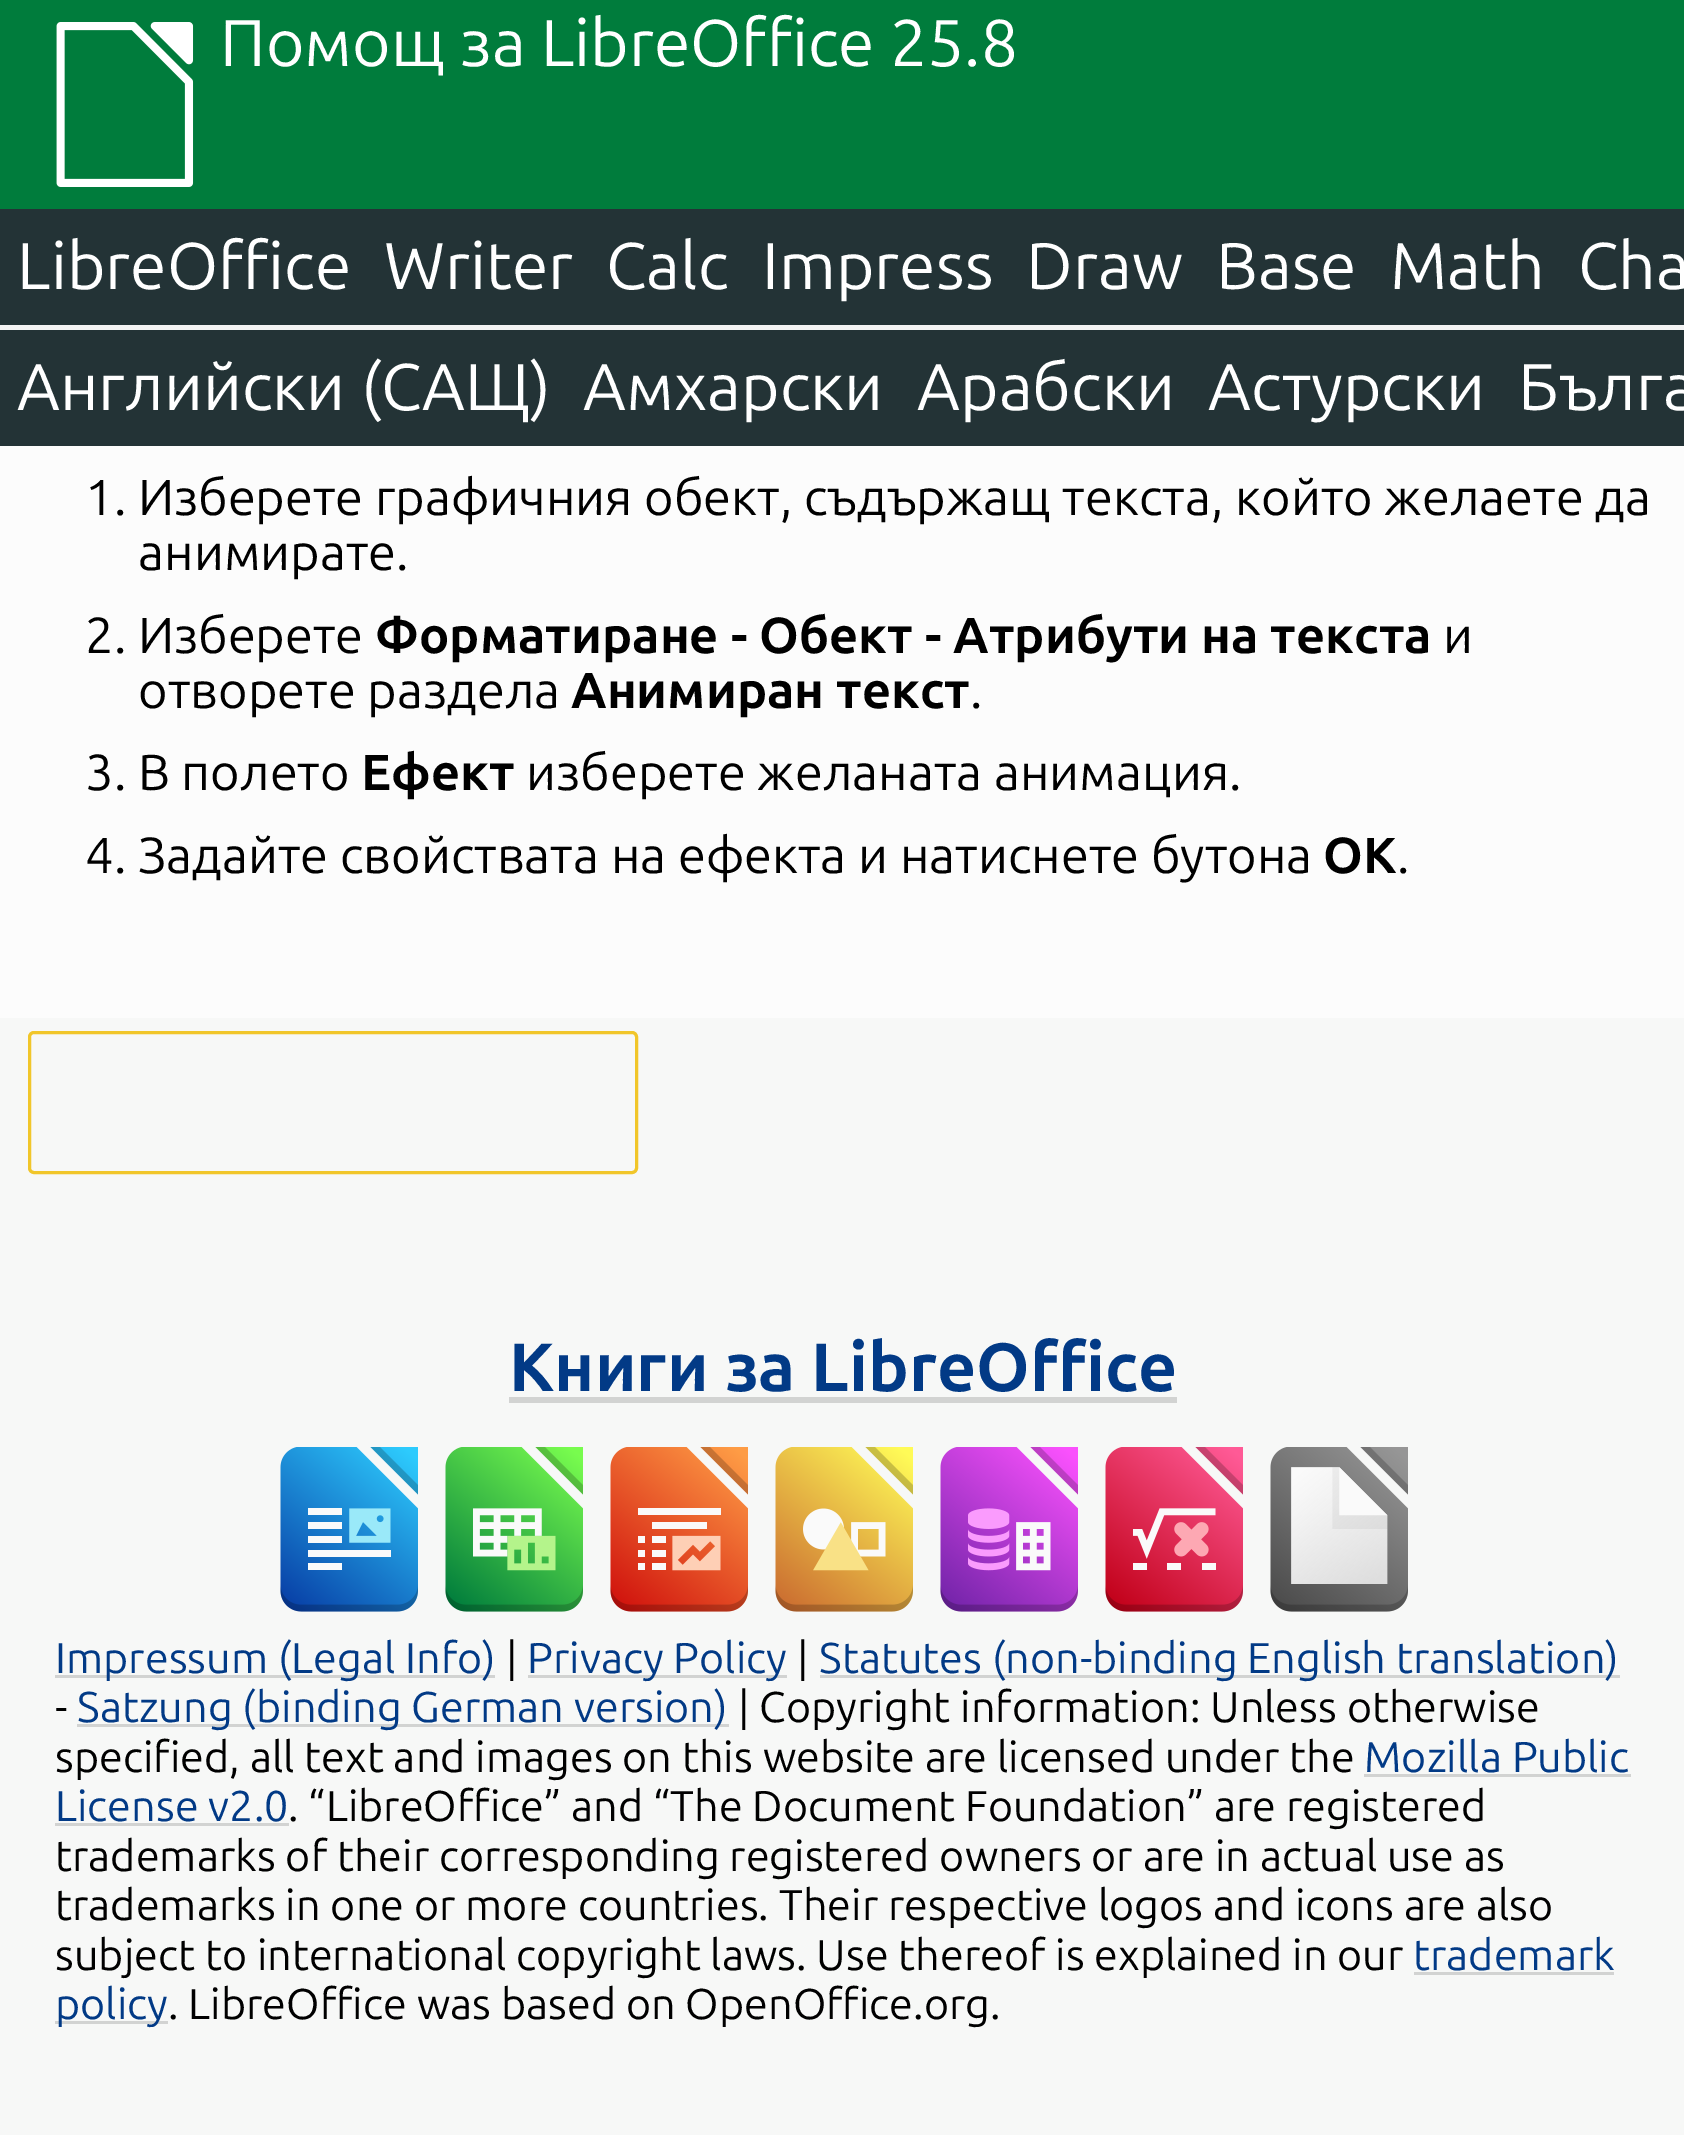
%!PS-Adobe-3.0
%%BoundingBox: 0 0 1684 2135
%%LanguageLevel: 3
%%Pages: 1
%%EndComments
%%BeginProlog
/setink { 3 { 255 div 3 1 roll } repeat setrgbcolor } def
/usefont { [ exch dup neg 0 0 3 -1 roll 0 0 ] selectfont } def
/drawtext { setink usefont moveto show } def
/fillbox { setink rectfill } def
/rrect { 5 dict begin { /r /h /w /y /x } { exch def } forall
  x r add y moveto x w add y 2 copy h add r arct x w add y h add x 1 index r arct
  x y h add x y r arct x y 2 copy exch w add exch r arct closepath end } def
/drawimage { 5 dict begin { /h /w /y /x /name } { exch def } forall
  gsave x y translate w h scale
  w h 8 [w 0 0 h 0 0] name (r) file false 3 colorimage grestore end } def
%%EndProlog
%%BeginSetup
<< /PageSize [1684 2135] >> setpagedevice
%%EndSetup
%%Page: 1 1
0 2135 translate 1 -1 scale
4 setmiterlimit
0 0 1684 2135 247 248 247 fillbox
0 0 1684 209 0 124 60 fillbox
(assets/img1.rgb) 56 22 138 165 drawimage
(Помощ за LibreOffice 25.8) 220 66 /Ubuntu-Regular 66 255 255 255 drawtext
0 209 1684 116 35 51 54 fillbox
0 325 1684 5 243 243 243 fillbox
(LibreOffice) 17 289 /Ubuntu-Regular 66 255 255 255 drawtext
(Writer) 384 289 /Ubuntu-Regular 66 255 255 255 drawtext
(Calc) 606 289 /Ubuntu-Regular 66 255 255 255 drawtext
(Impress) 762 289 /Ubuntu-Regular 66 255 255 255 drawtext
(Draw) 1026 289 /Ubuntu-Regular 66 255 255 255 drawtext
(Base) 1216 289 /Ubuntu-Regular 66 255 255 255 drawtext
(Math) 1390 289 /Ubuntu-Regular 66 255 255 255 drawtext
(Cha) 1578 289 /Ubuntu-Regular 66 255 255 255 drawtext
0 330 1684 116 35 51 54 fillbox
(Английски \(САЩ\)) 17 410 /Ubuntu-Regular 66 255 255 255 drawtext
(Амхарски) 583 410 /Ubuntu-Regular 66 255 255 255 drawtext
(Арабски) 917 410 /Ubuntu-Regular 66 255 255 255 drawtext
(Астурски) 1208 410 /Ubuntu-Regular 66 255 255 255 drawtext
(Бълга) 1518 410 /Ubuntu-Regular 66 255 255 255 drawtext
0 446 1684 572 252 252 252 fillbox
(1. Изберете графичния обект, съдържащ текста, който желаете да) 85 515 /Ubuntu-Regular 50.6 0 0 0 drawtext
(анимирате.) 138 570 /Ubuntu-Regular 50.6 0 0 0 drawtext
(2. Изберете) 85 653 /Ubuntu-Regular 50.6 0 0 0 drawtext
(Форматиране - Обект - Атрибути на текста) 375 653 /Ubuntu-Bold 50.6 0 0 0 drawtext
(и) 1443 653 /Ubuntu-Regular 50.6 0 0 0 drawtext
(отворете раздела) 138 708 /Ubuntu-Regular 50.6 0 0 0 drawtext
(Анимиран текст) 571 708 /Ubuntu-Bold 50.6 0 0 0 drawtext
(.) 970 708 /Ubuntu-Regular 50.6 0 0 0 drawtext
(3. В полето) 85 790 /Ubuntu-Regular 50.6 0 0 0 drawtext
(Ефект) 361 790 /Ubuntu-Bold 50.6 0 0 0 drawtext
(изберете желаната анимация.) 526 790 /Ubuntu-Regular 50.6 0 0 0 drawtext
(4. Задайте свойствата на ефекта и натиснете бутона) 85 873 /Ubuntu-Regular 50.6 0 0 0 drawtext
(OK) 1323 873 /Ubuntu-Bold 50.6 0 0 0 drawtext
(.) 1397 873 /Ubuntu-Regular 50.6 0 0 0 drawtext
241 198 42 setink
3 setlinewidth
29.5 1032.5 607 140 4.5 rrect stroke
(Книги за LibreOffice) 509 1391 /Ubuntu-Bold 68.25 2 58 134 drawtext
509 1397 668 6 210 211 210 fillbox
(assets/img2.rgb) 280 1447 138 165 drawimage
(assets/img3.rgb) 445 1447 138 165 drawimage
(assets/img4.rgb) 610 1447 138 165 drawimage
(assets/img5.rgb) 775 1447 138 165 drawimage
(assets/img6.rgb) 940 1447 138 165 drawimage
(assets/img7.rgb) 1105 1447 138 165 drawimage
(assets/img8.rgb) 1270 1447 138 165 drawimage
55 1675 440 3 210 211 210 fillbox
(Impressum \(Legal Info\)) 55 1673 /Ubuntu-Regular 43.1 2 58 134 drawtext
(|) 506 1673 /Ubuntu-Regular 43.1 0 0 0 drawtext
528 1675 259 3 210 211 210 fillbox
(Privacy Policy) 527 1673 /Ubuntu-Regular 43.1 2 58 134 drawtext
(|) 797 1673 /Ubuntu-Regular 43.1 0 0 0 drawtext
820 1675 800 3 210 211 210 fillbox
(Statutes \(non-binding English translation\)) 819 1673 /Ubuntu-Regular 43.1 2 58 134 drawtext
(-) 55 1722 /Ubuntu-Regular 43.1 0 0 0 drawtext
77 1724 652 3 210 211 210 fillbox
(Satzung \(binding German version\)) 77 1722 /Ubuntu-Regular 43.1 2 58 134 drawtext
(| Copyright information: Unless otherwise) 738 1722 /Ubuntu-Regular 43.1 0 0 0 drawtext
(specified, all text and images on this website are licensed under the) 55 1772 /Ubuntu-Regular 43.1 0 0 0 drawtext
(Mozilla Public) 1364 1772 /Ubuntu-Regular 43.1 2 58 134 drawtext
1364 1774 267 3 210 211 210 fillbox
(License v2.0) 55 1821 /Ubuntu-Regular 43.1 2 58 134 drawtext
55 1823 234 3 210 211 210 fillbox
(. “LibreOffice” and “The Document Foundation” are registered) 288 1821 /Ubuntu-Regular 43.1 0 0 0 drawtext
(trademarks of their corresponding registered owners or are in actual use as) 55 1871 /Ubuntu-Regular 43.1 0 0 0 drawtext
(trademarks in one or more countries. Their respective logos and icons are also) 55 1920 /Ubuntu-Regular 43.1 0 0 0 drawtext
(subject to international copyright laws. Use thereof is explained in our) 55 1970 /Ubuntu-Regular 43.1 0 0 0 drawtext
(trademark) 1413 1970 /Ubuntu-Regular 43.1 2 58 134 drawtext
1414 1972 200 3 210 211 210 fillbox
55 2021 113 3 210 211 210 fillbox
(policy) 55 2019 /Ubuntu-Regular 43.1 2 58 134 drawtext
(. LibreOffice was based on OpenOffice.org.) 168 2019 /Ubuntu-Regular 43.1 0 0 0 drawtext
showpage
%%EOF
